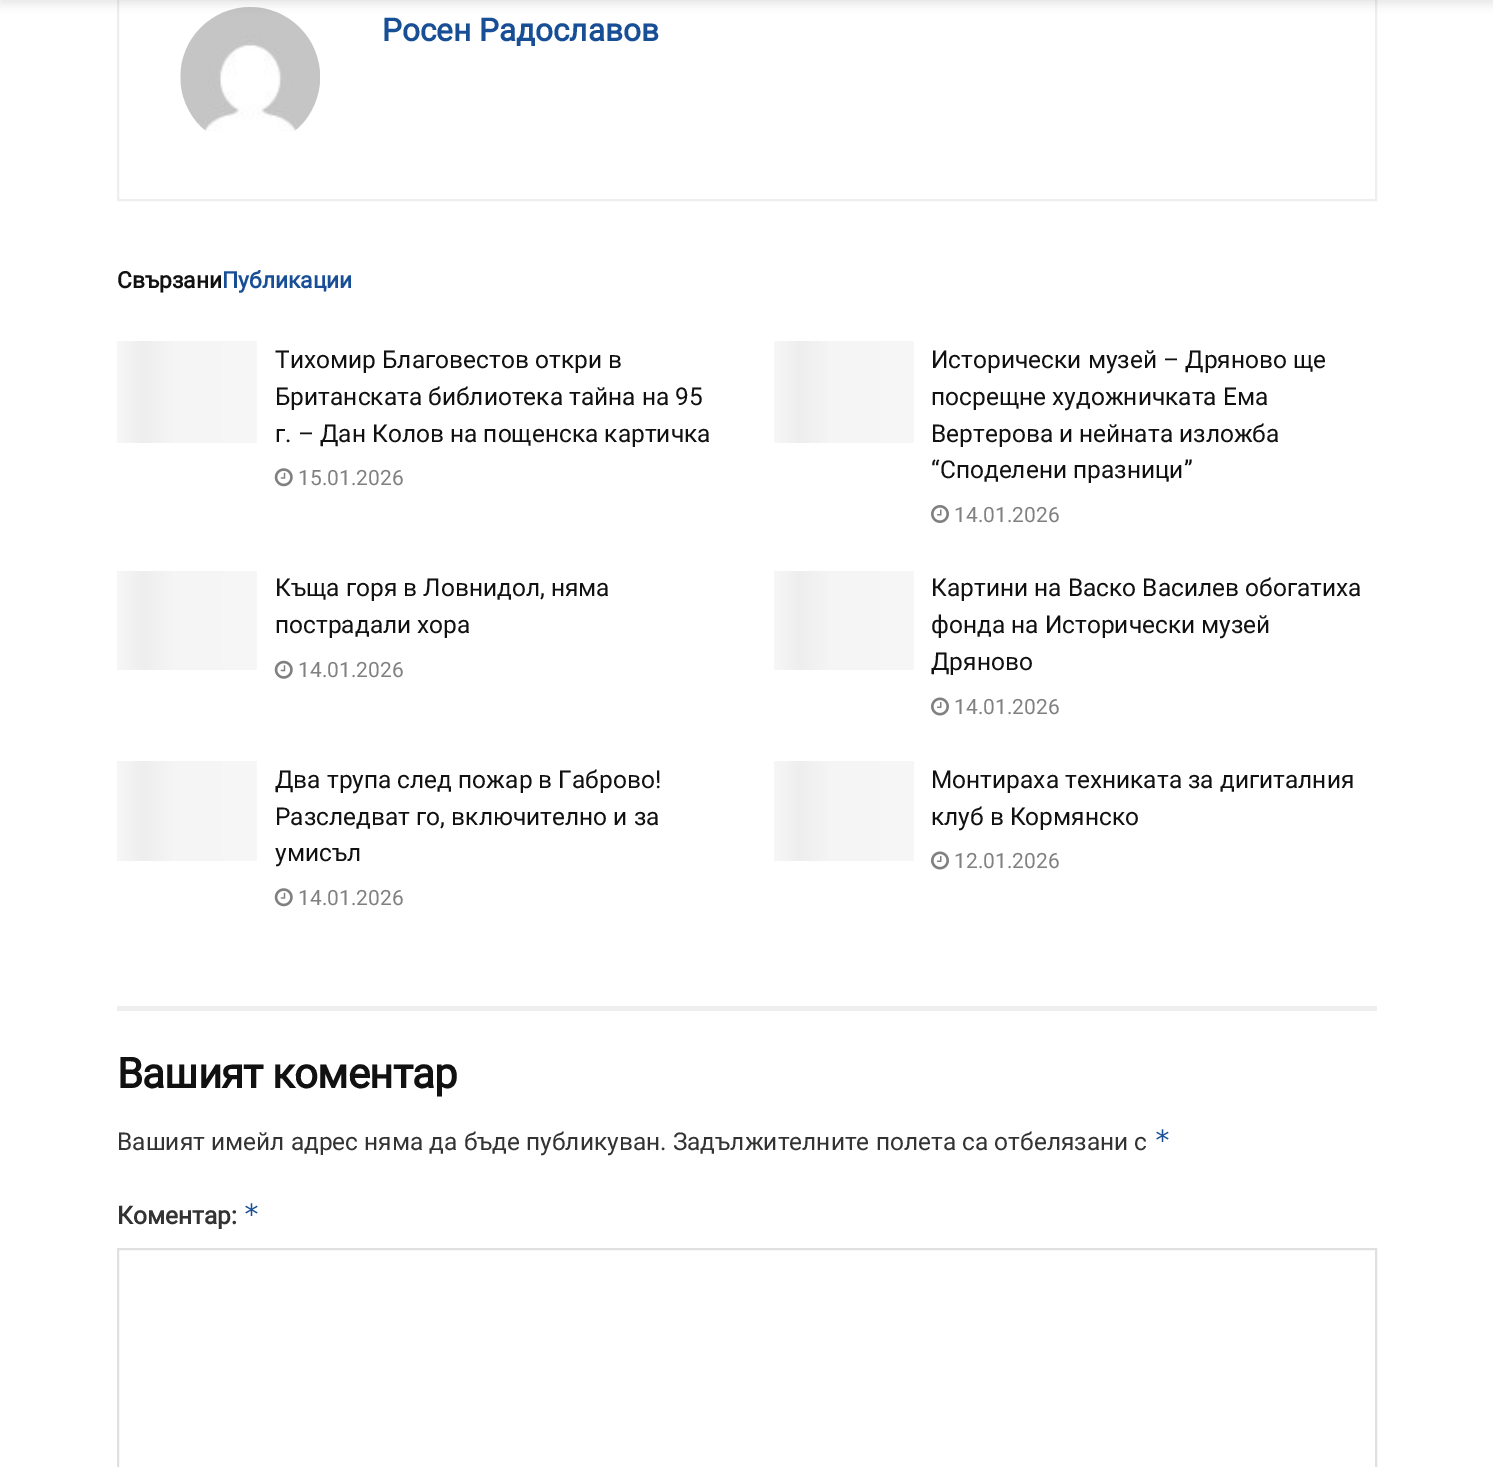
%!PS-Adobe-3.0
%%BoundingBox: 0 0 1493 1467
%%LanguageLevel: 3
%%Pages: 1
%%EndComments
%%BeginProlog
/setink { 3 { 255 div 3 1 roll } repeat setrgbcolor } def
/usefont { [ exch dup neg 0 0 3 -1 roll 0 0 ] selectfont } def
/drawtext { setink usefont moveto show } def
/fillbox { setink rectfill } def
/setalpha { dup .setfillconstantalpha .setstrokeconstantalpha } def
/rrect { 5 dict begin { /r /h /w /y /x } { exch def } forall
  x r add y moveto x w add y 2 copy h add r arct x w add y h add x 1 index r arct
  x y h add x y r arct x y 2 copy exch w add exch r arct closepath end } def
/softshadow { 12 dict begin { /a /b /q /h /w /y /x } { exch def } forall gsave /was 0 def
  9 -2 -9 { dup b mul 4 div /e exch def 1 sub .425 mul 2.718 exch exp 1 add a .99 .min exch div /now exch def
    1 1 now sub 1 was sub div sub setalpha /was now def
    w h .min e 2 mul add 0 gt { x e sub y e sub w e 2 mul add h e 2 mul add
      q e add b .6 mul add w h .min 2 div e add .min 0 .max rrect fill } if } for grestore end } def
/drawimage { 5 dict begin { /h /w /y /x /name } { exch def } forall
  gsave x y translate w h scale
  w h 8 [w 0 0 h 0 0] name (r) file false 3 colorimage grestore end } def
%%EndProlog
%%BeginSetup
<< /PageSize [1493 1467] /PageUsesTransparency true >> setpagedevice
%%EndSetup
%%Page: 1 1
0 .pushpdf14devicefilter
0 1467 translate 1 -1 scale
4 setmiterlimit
0 0 1493 1467 255 255 255 fillbox
238 238 238 setink
2 setlinewidth
118 -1 1258 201 rectstroke
(assets/img1.rgb) 180 7 140 124 drawimage
0 0 0 setink
0 -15 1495 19 0 5 0.1 softshadow
(Росен Радославов) 382 41 /Roboto-Bold 31.5 23 78 150 drawtext
(Свързани) 117 288 /Roboto-Bold 22.75 17 17 17 drawtext
(Публикации) 222 288 /Roboto-Bold 22.75 23 78 150 drawtext
gsave 117 341 moveto 257 341 lineto 257 443 lineto 117 443 lineto closepath clip newpath
<< /ShadingType 2 /ColorSpace /DeviceRGB /Coords [117 392 257 392] /Extend [true true] /Function << /FunctionType 3 /Domain [0 1] /Functions [<< /FunctionType 2 /Domain [0 1] /C0 [0.969 0.969 0.969] /C1 [0.933 0.933 0.933] /N 1 >> << /FunctionType 2 /Domain [0 1] /C0 [0.933 0.933 0.933] /C1 [0.961 0.961 0.961] /N 1 >> << /FunctionType 2 /Domain [0 1] /C0 [0.961 0.961 0.961] /C1 [0.969 0.969 0.969] /N 1 >>] /Bounds [0.2 0.4] /Encode [0 1 0 1 0 1] >> >> shfill grestore
(Тихомир Благовестов откри в) 275 368 /Roboto-Regular 24.5 17 17 17 drawtext
(Британската библиотека тайна на 95) 275 405 /Roboto-Regular 24.5 17 17 17 drawtext
(г. – Дан Колов на пощенска картичка) 275 442 /Roboto-Regular 24.5 17 17 17 drawtext
(assets/img2.rgb) 274 468 19 19 drawimage
(15.01.2026) 298 485 /Roboto-Regular 21 128 128 128 drawtext
gsave 774 341 moveto 914 341 lineto 914 443 lineto 774 443 lineto closepath clip newpath
<< /ShadingType 2 /ColorSpace /DeviceRGB /Coords [774 392 914 392] /Extend [true true] /Function << /FunctionType 3 /Domain [0 1] /Functions [<< /FunctionType 2 /Domain [0 1] /C0 [0.969 0.969 0.969] /C1 [0.933 0.933 0.933] /N 1 >> << /FunctionType 2 /Domain [0 1] /C0 [0.933 0.933 0.933] /C1 [0.961 0.961 0.961] /N 1 >> << /FunctionType 2 /Domain [0 1] /C0 [0.961 0.961 0.961] /C1 [0.969 0.969 0.969] /N 1 >>] /Bounds [0.2 0.4] /Encode [0 1 0 1 0 1] >> >> shfill grestore
(Исторически музей – Дряново ще) 931 368 /Roboto-Regular 24.5 17 17 17 drawtext
(посрещне художничката Ема) 931 405 /Roboto-Regular 24.5 17 17 17 drawtext
(Вертерова и нейната изложба) 931 442 /Roboto-Regular 24.5 17 17 17 drawtext
(“Споделени празници”) 931 478 /Roboto-Regular 24.5 17 17 17 drawtext
(assets/img3.rgb) 931 505 18 18 drawimage
(14.01.2026) 954 522 /Roboto-Regular 21 128 128 128 drawtext
gsave 117 571 moveto 257 571 lineto 257 670 lineto 117 670 lineto closepath clip newpath
<< /ShadingType 2 /ColorSpace /DeviceRGB /Coords [117 620 257 620] /Extend [true true] /Function << /FunctionType 3 /Domain [0 1] /Functions [<< /FunctionType 2 /Domain [0 1] /C0 [0.969 0.969 0.969] /C1 [0.933 0.933 0.933] /N 1 >> << /FunctionType 2 /Domain [0 1] /C0 [0.933 0.933 0.933] /C1 [0.961 0.961 0.961] /N 1 >> << /FunctionType 2 /Domain [0 1] /C0 [0.961 0.961 0.961] /C1 [0.969 0.969 0.969] /N 1 >>] /Bounds [0.2 0.4] /Encode [0 1 0 1 0 1] >> >> shfill grestore
(Къща горя в Ловнидол, няма) 275 596 /Roboto-Regular 24.5 17 17 17 drawtext
(пострадали хора) 275 633 /Roboto-Regular 24.5 17 17 17 drawtext
(assets/img4.rgb) 274 660 19 19 drawimage
(14.01.2026) 298 677 /Roboto-Regular 21 128 128 128 drawtext
gsave 774 571 moveto 914 571 lineto 914 670 lineto 774 670 lineto closepath clip newpath
<< /ShadingType 2 /ColorSpace /DeviceRGB /Coords [774 620 914 620] /Extend [true true] /Function << /FunctionType 3 /Domain [0 1] /Functions [<< /FunctionType 2 /Domain [0 1] /C0 [0.969 0.969 0.969] /C1 [0.933 0.933 0.933] /N 1 >> << /FunctionType 2 /Domain [0 1] /C0 [0.933 0.933 0.933] /C1 [0.961 0.961 0.961] /N 1 >> << /FunctionType 2 /Domain [0 1] /C0 [0.961 0.961 0.961] /C1 [0.969 0.969 0.969] /N 1 >>] /Bounds [0.2 0.4] /Encode [0 1 0 1 0 1] >> >> shfill grestore
(Картини на Васко Василев обогатиха) 931 596 /Roboto-Regular 24.5 17 17 17 drawtext
(фонда на Исторически музей) 931 633 /Roboto-Regular 24.5 17 17 17 drawtext
(Дряново) 931 670 /Roboto-Regular 24.5 17 17 17 drawtext
(assets/img5.rgb) 931 697 18 19 drawimage
(14.01.2026) 954 714 /Roboto-Regular 21 128 128 128 drawtext
gsave 117 761 moveto 257 761 lineto 257 861 lineto 117 861 lineto closepath clip newpath
<< /ShadingType 2 /ColorSpace /DeviceRGB /Coords [117 811 257 811] /Extend [true true] /Function << /FunctionType 3 /Domain [0 1] /Functions [<< /FunctionType 2 /Domain [0 1] /C0 [0.969 0.969 0.969] /C1 [0.933 0.933 0.933] /N 1 >> << /FunctionType 2 /Domain [0 1] /C0 [0.933 0.933 0.933] /C1 [0.961 0.961 0.961] /N 1 >> << /FunctionType 2 /Domain [0 1] /C0 [0.961 0.961 0.961] /C1 [0.969 0.969 0.969] /N 1 >>] /Bounds [0.2 0.4] /Encode [0 1 0 1 0 1] >> >> shfill grestore
(Два трупа след пожар в Габрово!) 275 788 /Roboto-Regular 24.5 17 17 17 drawtext
(Разследват го, включително и за) 275 825 /Roboto-Regular 24.5 17 17 17 drawtext
(умисъл) 275 861 /Roboto-Regular 24.5 17 17 17 drawtext
(assets/img6.rgb) 274 888 19 19 drawimage
(14.01.2026) 298 905 /Roboto-Regular 21 128 128 128 drawtext
gsave 774 761 moveto 914 761 lineto 914 861 lineto 774 861 lineto closepath clip newpath
<< /ShadingType 2 /ColorSpace /DeviceRGB /Coords [774 811 914 811] /Extend [true true] /Function << /FunctionType 3 /Domain [0 1] /Functions [<< /FunctionType 2 /Domain [0 1] /C0 [0.969 0.969 0.969] /C1 [0.933 0.933 0.933] /N 1 >> << /FunctionType 2 /Domain [0 1] /C0 [0.933 0.933 0.933] /C1 [0.961 0.961 0.961] /N 1 >> << /FunctionType 2 /Domain [0 1] /C0 [0.961 0.961 0.961] /C1 [0.969 0.969 0.969] /N 1 >>] /Bounds [0.2 0.4] /Encode [0 1 0 1 0 1] >> >> shfill grestore
(Монтираха техниката за дигиталния) 931 788 /Roboto-Regular 24.5 17 17 17 drawtext
(клуб в Кормянско) 931 825 /Roboto-Regular 24.5 17 17 17 drawtext
(assets/img5.rgb) 931 851 18 19 drawimage
(12.01.2026) 954 868 /Roboto-Regular 21 128 128 128 drawtext
117 1006 1260 5 238 238 238 fillbox
/Roboto-Bold 42 usefont
17 17 17 setink
117 1088 moveto -0.8 0 (Вашият коментар) ashow
(Вашият имейл адрес няма да бъде публикуван. Задължителните полета са отбелязани с) 117 1150 /Roboto-Regular 24.5 51 51 51 drawtext
(*) 1154 1150 /DejaVuSansMono-Regular 28 23 78 150 drawtext
(Коментар:) 117 1224 /Roboto-Bold 24.5 51 51 51 drawtext
(*) 243 1224 /DejaVuSansMono-Regular 28 23 78 150 drawtext
224 224 224 setink
118 1249 1258 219 rectstroke
.poppdf14devicefilter showpage
%%EOF
